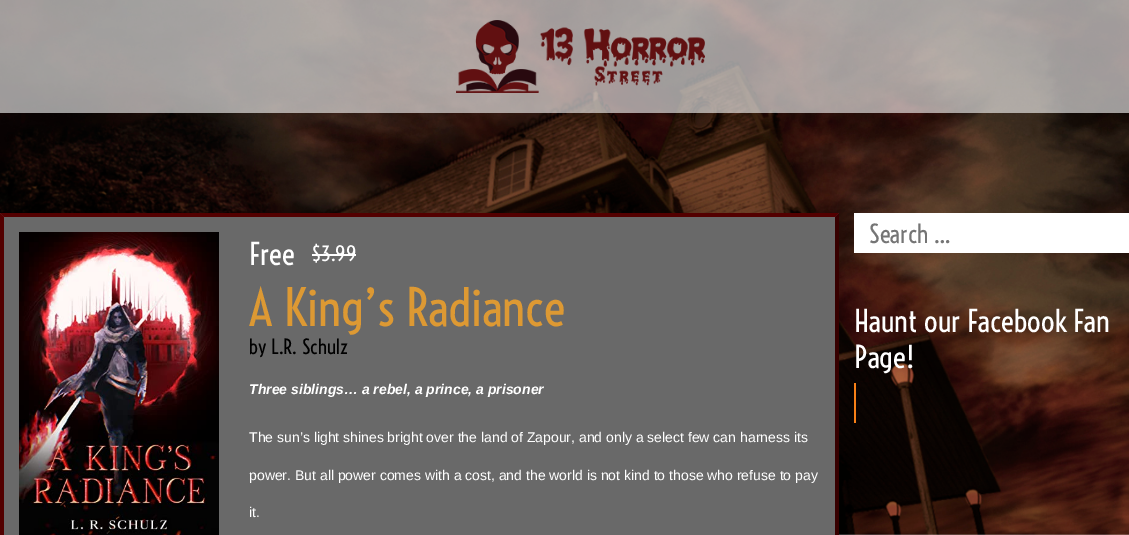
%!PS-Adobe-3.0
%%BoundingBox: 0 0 1129 535
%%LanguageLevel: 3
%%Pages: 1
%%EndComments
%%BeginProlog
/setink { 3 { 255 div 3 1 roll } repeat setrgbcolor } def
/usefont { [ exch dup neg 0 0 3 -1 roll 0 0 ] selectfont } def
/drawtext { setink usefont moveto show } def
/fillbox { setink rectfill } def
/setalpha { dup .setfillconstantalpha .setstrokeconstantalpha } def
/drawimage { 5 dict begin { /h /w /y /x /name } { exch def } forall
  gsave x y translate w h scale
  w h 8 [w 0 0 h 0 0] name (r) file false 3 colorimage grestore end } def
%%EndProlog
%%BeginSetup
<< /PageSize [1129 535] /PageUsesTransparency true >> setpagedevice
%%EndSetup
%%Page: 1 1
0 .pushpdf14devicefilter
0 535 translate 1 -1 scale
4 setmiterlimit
0 0 1129 535 255 255 255 fillbox
(assets/img1.rgb) 0 0 1129 535 drawimage
0.6 setalpha
0 0 1129 113 255 255 255 fillbox
1 setalpha
(assets/img2.rgb) 456 20 249 73 drawimage
0 213 839 322 105 105 105 fillbox
83 0 0 setink
0 213 moveto 839 213 lineto 835 217 lineto 4 217 lineto closepath fill
55 0 0 setink
839 213 moveto 839 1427 lineto 835 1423 lineto 835 217 lineto closepath fill
83 0 0 setink
0 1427 moveto 0 213 lineto 4 217 lineto 4 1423 lineto closepath fill
(assets/img3.rgb) 19 232 200 303 drawimage
(Free) 249 265 /Voltaire-Regular 30 255 255 255 drawtext
($3.99) 312 261 /Voltaire-Regular 20 255 255 255 drawtext
312 254 44 2 255 255 255 fillbox
(A King’s Radiance) 249 326 /Voltaire-Regular 50 221 153 51 drawtext
(by L.R. Schulz) 249 354 /Voltaire-Regular 20 0 0 0 drawtext
(Three siblings… a rebel, a prince, a prisoner) 249 394 /LiberationSans-BoldItalic 14 255 255 255 drawtext
(The sun’s light shines bright over the land of Zapour, and only a select few can harness its) 249 442 /LiberationSans-Regular 14 255 255 255 drawtext
(power. But all power comes with a cost, and the world is not kind to those who refuse to pay) 249 480 /LiberationSans-Regular 14 255 255 255 drawtext
(it.) 249 517 /LiberationSans-Regular 14 255 255 255 drawtext
854 213 275 40 255 255 255 fillbox
(Search …) 869 243 /Voltaire-Regular 25 117 117 117 drawtext
(Haunt our Facebook Fan) 854 332 /Voltaire-Regular 30 255 255 255 drawtext
(Page!) 854 368 /Voltaire-Regular 30 255 255 255 drawtext
854 383 2 40 248 128 23 fillbox
.poppdf14devicefilter showpage
%%EOF
